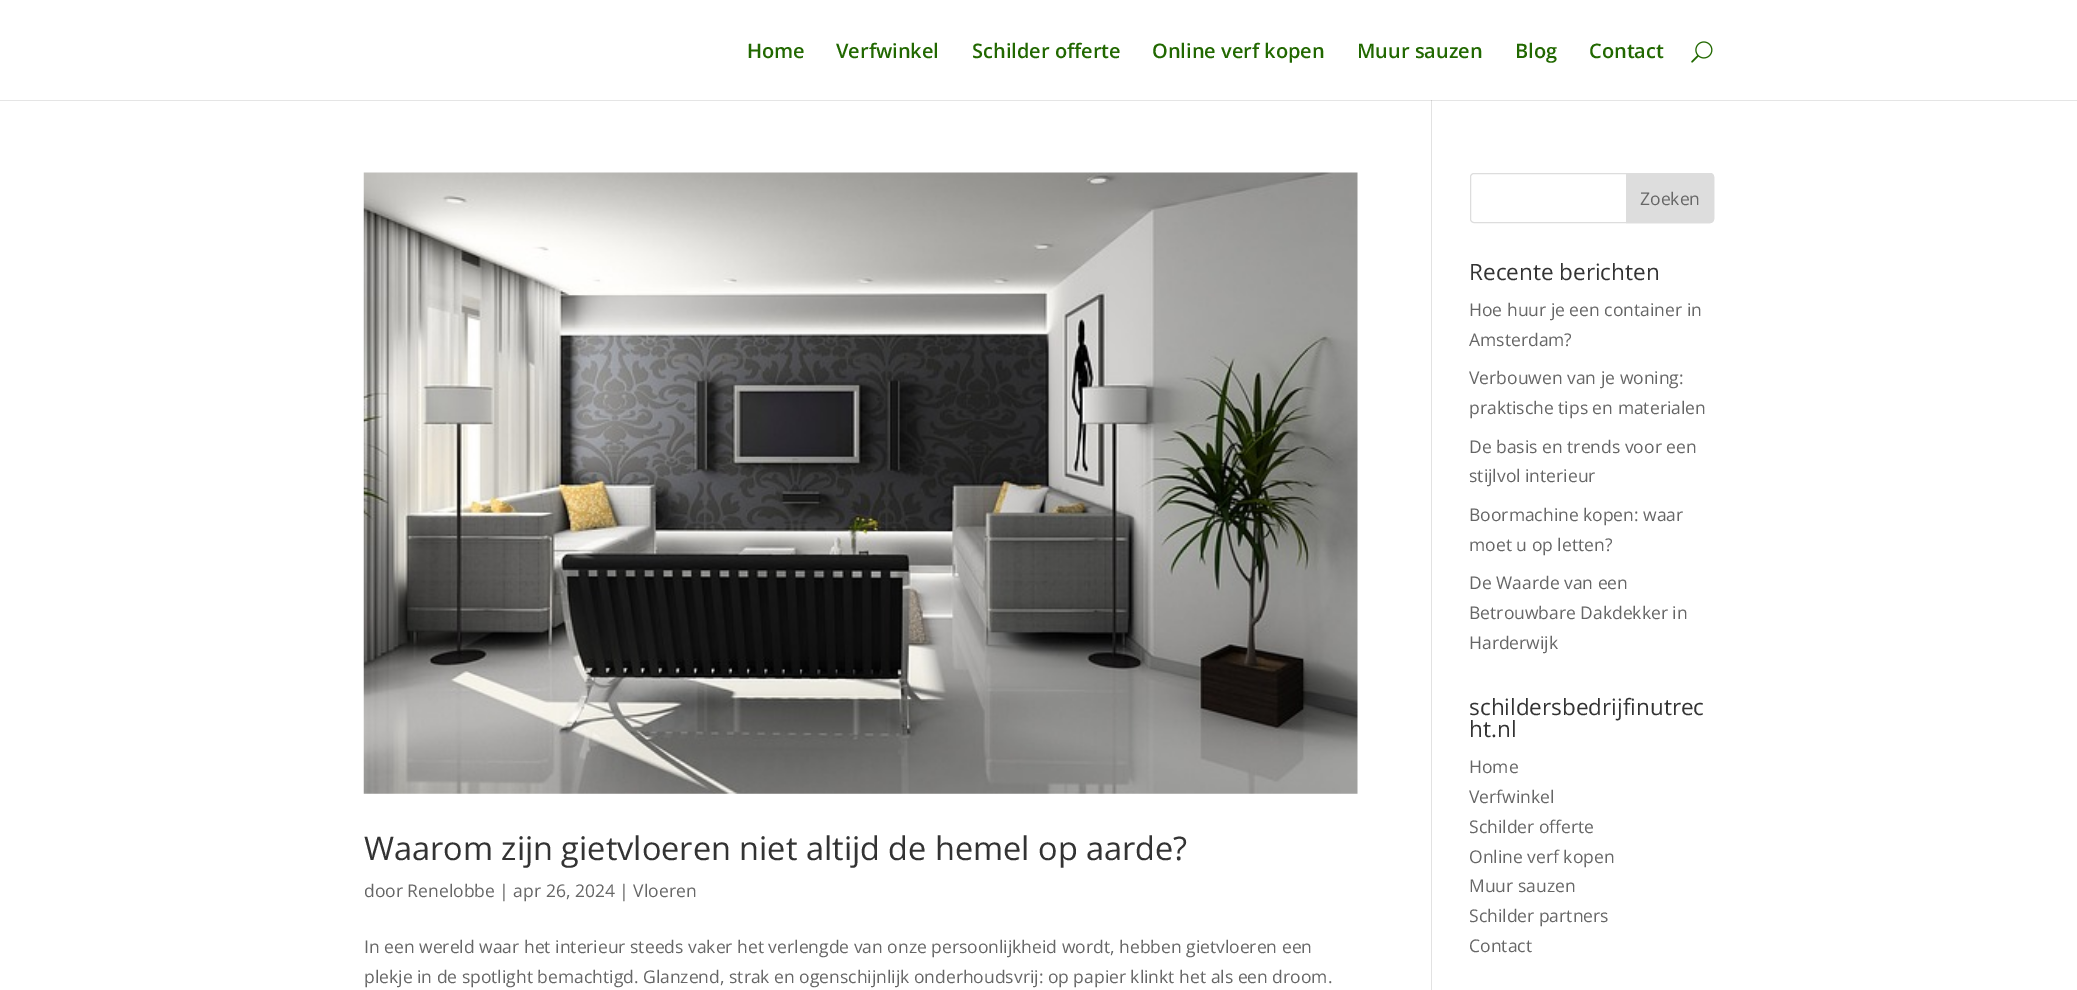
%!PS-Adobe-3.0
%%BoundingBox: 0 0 2077 990
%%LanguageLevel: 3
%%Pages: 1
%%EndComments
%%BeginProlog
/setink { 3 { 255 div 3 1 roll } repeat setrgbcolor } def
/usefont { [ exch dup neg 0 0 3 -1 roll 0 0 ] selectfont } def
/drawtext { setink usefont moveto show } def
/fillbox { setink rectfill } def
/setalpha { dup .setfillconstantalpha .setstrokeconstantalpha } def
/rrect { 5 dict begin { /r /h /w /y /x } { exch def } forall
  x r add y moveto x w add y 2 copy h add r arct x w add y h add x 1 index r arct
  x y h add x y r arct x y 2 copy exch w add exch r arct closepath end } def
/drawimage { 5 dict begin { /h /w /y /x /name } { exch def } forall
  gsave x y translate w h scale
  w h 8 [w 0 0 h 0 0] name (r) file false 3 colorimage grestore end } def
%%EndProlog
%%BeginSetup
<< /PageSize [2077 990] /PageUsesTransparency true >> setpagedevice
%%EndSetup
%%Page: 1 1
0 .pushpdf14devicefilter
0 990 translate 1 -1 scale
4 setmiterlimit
0 0 2077 990 255 255 255 fillbox
1431 100 1 890 226 226 226 fillbox
0.1 setalpha
0 0 0 setink
0 100 moveto 0 101 lineto 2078 101 lineto 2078 1 lineto 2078 100 lineto closepath fill
1 setalpha
(Home) 747 58 /OpenSans-SemiBold 20 33 104 0 drawtext
(Verfwinkel) 836 58 /OpenSans-SemiBold 20 33 104 0 drawtext
(Schilder offerte) 972 58 /OpenSans-SemiBold 20 33 104 0 drawtext
(Online verf kopen) 1152 58 /OpenSans-SemiBold 20 33 104 0 drawtext
(Muur sauzen) 1357 58 /OpenSans-SemiBold 20 33 104 0 drawtext
(Blog) 1515 58 /OpenSans-SemiBold 20 33 104 0 drawtext
(Contact) 1589 58 /OpenSans-SemiBold 20 33 104 0 drawtext
(assets/img1.rgb) 1691 41 22 22 drawimage
(assets/img2.rgb) 363 172 995 622 drawimage
(Waarom zijn gietvloeren niet altijd de hemel op aarde?) 364 860 /OpenSans-Regular 32.5 51 51 51 drawtext
(door Renelobbe | apr 26, 2024 | Vloeren) 364 897 /OpenSans-Regular 17.5 102 102 102 drawtext
(In een wereld waar het interieur steeds vaker het verlengde van onze persoonlijkheid wordt, hebben gietvloeren een) 364 953 /OpenSans-Regular 17.5 102 102 102 drawtext
(plekje in de spotlight bemachtigd. Glanzend, strak en ogenschijnlijk onderhoudsvrij: op papier klinkt het als een droom.) 364 983 /OpenSans-Regular 17.5 102 102 102 drawtext
221 221 221 setink
1470.5 173.5 243 49 3.5 rrect stroke
1626.5 173.5 moveto 1710 173.5 lineto 1712 173.5 1713.5 175 1713.5 177 curveto 1713.5 219 lineto 1713.5 221 1712 222.5 1710 222.5 curveto 1626.5 222.5 lineto closepath gsave fill grestore
stroke
(Zoeken) 1640 205 /OpenSans-Regular 17.5 102 102 102 drawtext
(Recente berichten) 1469 280 /OpenSans-Regular 22.5 51 51 51 drawtext
(Hoe huur je een container in) 1469 316 /OpenSans-Regular 17.5 102 102 102 drawtext
(Amsterdam?) 1469 346 /OpenSans-Regular 17.5 102 102 102 drawtext
(Verbouwen van je woning:) 1469 384 /OpenSans-Regular 17.5 102 102 102 drawtext
(praktische tips en materialen) 1469 414 /OpenSans-Regular 17.5 102 102 102 drawtext
(De basis en trends voor een) 1469 453 /OpenSans-Regular 17.5 102 102 102 drawtext
(stijlvol interieur) 1469 482 /OpenSans-Regular 17.5 102 102 102 drawtext
(Boormachine kopen: waar) 1469 521 /OpenSans-Regular 17.5 102 102 102 drawtext
(moet u op letten?) 1469 551 /OpenSans-Regular 17.5 102 102 102 drawtext
(De Waarde van een) 1469 589 /OpenSans-Regular 17.5 102 102 102 drawtext
(Betrouwbare Dakdekker in) 1469 619 /OpenSans-Regular 17.5 102 102 102 drawtext
(Harderwijk) 1469 649 /OpenSans-Regular 17.5 102 102 102 drawtext
(schildersbedrijfinutrec) 1469 715 /OpenSans-Regular 22.5 51 51 51 drawtext
(ht.nl) 1469 737 /OpenSans-Regular 22.5 51 51 51 drawtext
(Home) 1469 773 /OpenSans-Regular 17.5 102 102 102 drawtext
(Verfwinkel) 1469 803 /OpenSans-Regular 17.5 102 102 102 drawtext
(Schilder offerte) 1469 833 /OpenSans-Regular 17.5 102 102 102 drawtext
(Online verf kopen) 1469 863 /OpenSans-Regular 17.5 102 102 102 drawtext
(Muur sauzen) 1469 892 /OpenSans-Regular 17.5 102 102 102 drawtext
(Schilder partners) 1469 922 /OpenSans-Regular 17.5 102 102 102 drawtext
(Contact) 1469 952 /OpenSans-Regular 17.5 102 102 102 drawtext
.poppdf14devicefilter showpage
%%EOF
